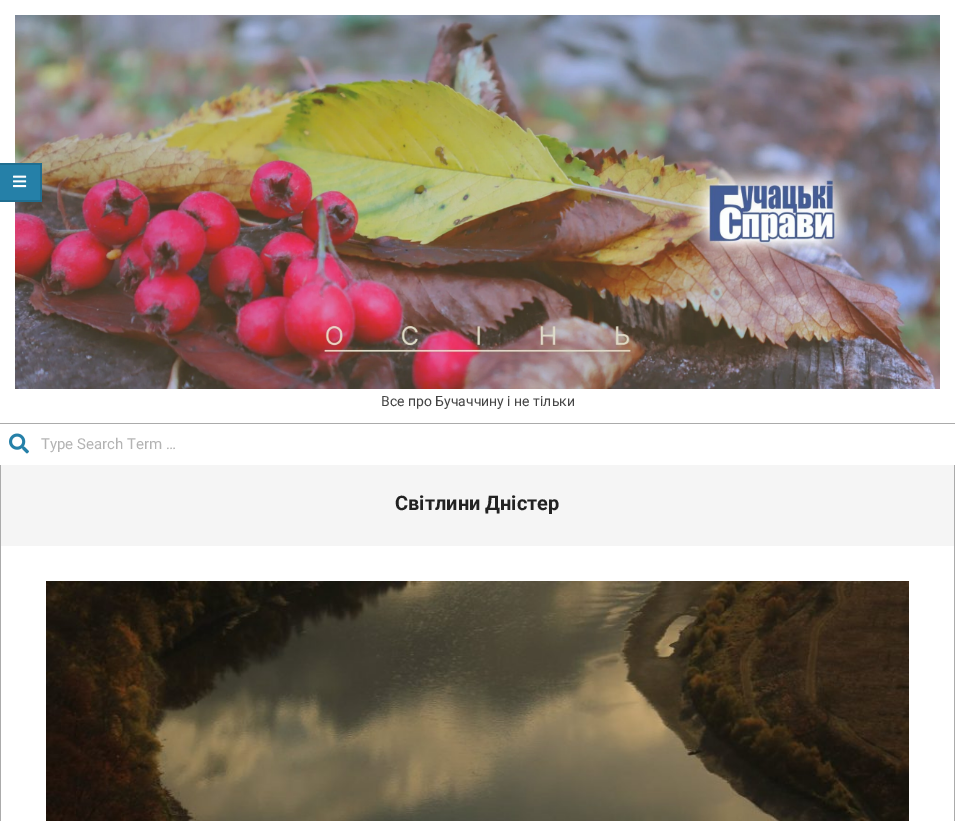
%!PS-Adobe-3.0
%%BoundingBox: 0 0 955 821
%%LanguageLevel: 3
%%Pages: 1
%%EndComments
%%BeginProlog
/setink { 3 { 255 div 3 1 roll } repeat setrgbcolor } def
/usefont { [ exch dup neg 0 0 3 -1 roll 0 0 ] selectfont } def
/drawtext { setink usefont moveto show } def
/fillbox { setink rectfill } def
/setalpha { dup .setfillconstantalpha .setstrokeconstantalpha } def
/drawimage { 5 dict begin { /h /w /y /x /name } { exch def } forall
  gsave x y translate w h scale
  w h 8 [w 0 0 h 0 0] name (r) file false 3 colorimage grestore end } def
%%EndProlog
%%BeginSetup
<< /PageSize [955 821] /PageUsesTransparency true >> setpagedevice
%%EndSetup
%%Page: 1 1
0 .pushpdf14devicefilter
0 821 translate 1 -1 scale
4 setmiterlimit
0 0 955 821 255 255 255 fillbox
(assets/img2.rgb) 15 15 925 374 drawimage
0 163 42 39 37 128 168 fillbox
32 110 144 setink
0 163 moveto 42 163 lineto 40 165 lineto 0 165 lineto closepath fill
0.14 setalpha
0 0 0 setink
42 163 moveto 42 202 lineto 40 200 lineto 40 165 lineto closepath fill
42 202 moveto 0 202 lineto 0 200 lineto 40 200 lineto closepath fill
1 setalpha
(assets/img1.rgb) 13 175 14 13 drawimage
(Все про Бучаччину і не тільки) 381 406 /Roboto-Regular 14 68 68 68 drawtext
0 423 955 1 171 171 171 fillbox
(assets/img3.rgb) 9 433 20 21 drawimage
(Type Search Term …) 41 449 /Roboto-Regular 15 179 179 179 drawtext
954 465 1 356 171 171 171 fillbox
0 465 1 356 171 171 171 fillbox
1 465 953 81 245 245 245 fillbox
(Світлини Дністер) 395 510 /Roboto-Bold 20 34 34 34 drawtext
(assets/img4.rgb) 46 581 863 240 drawimage
.poppdf14devicefilter showpage
%%EOF
